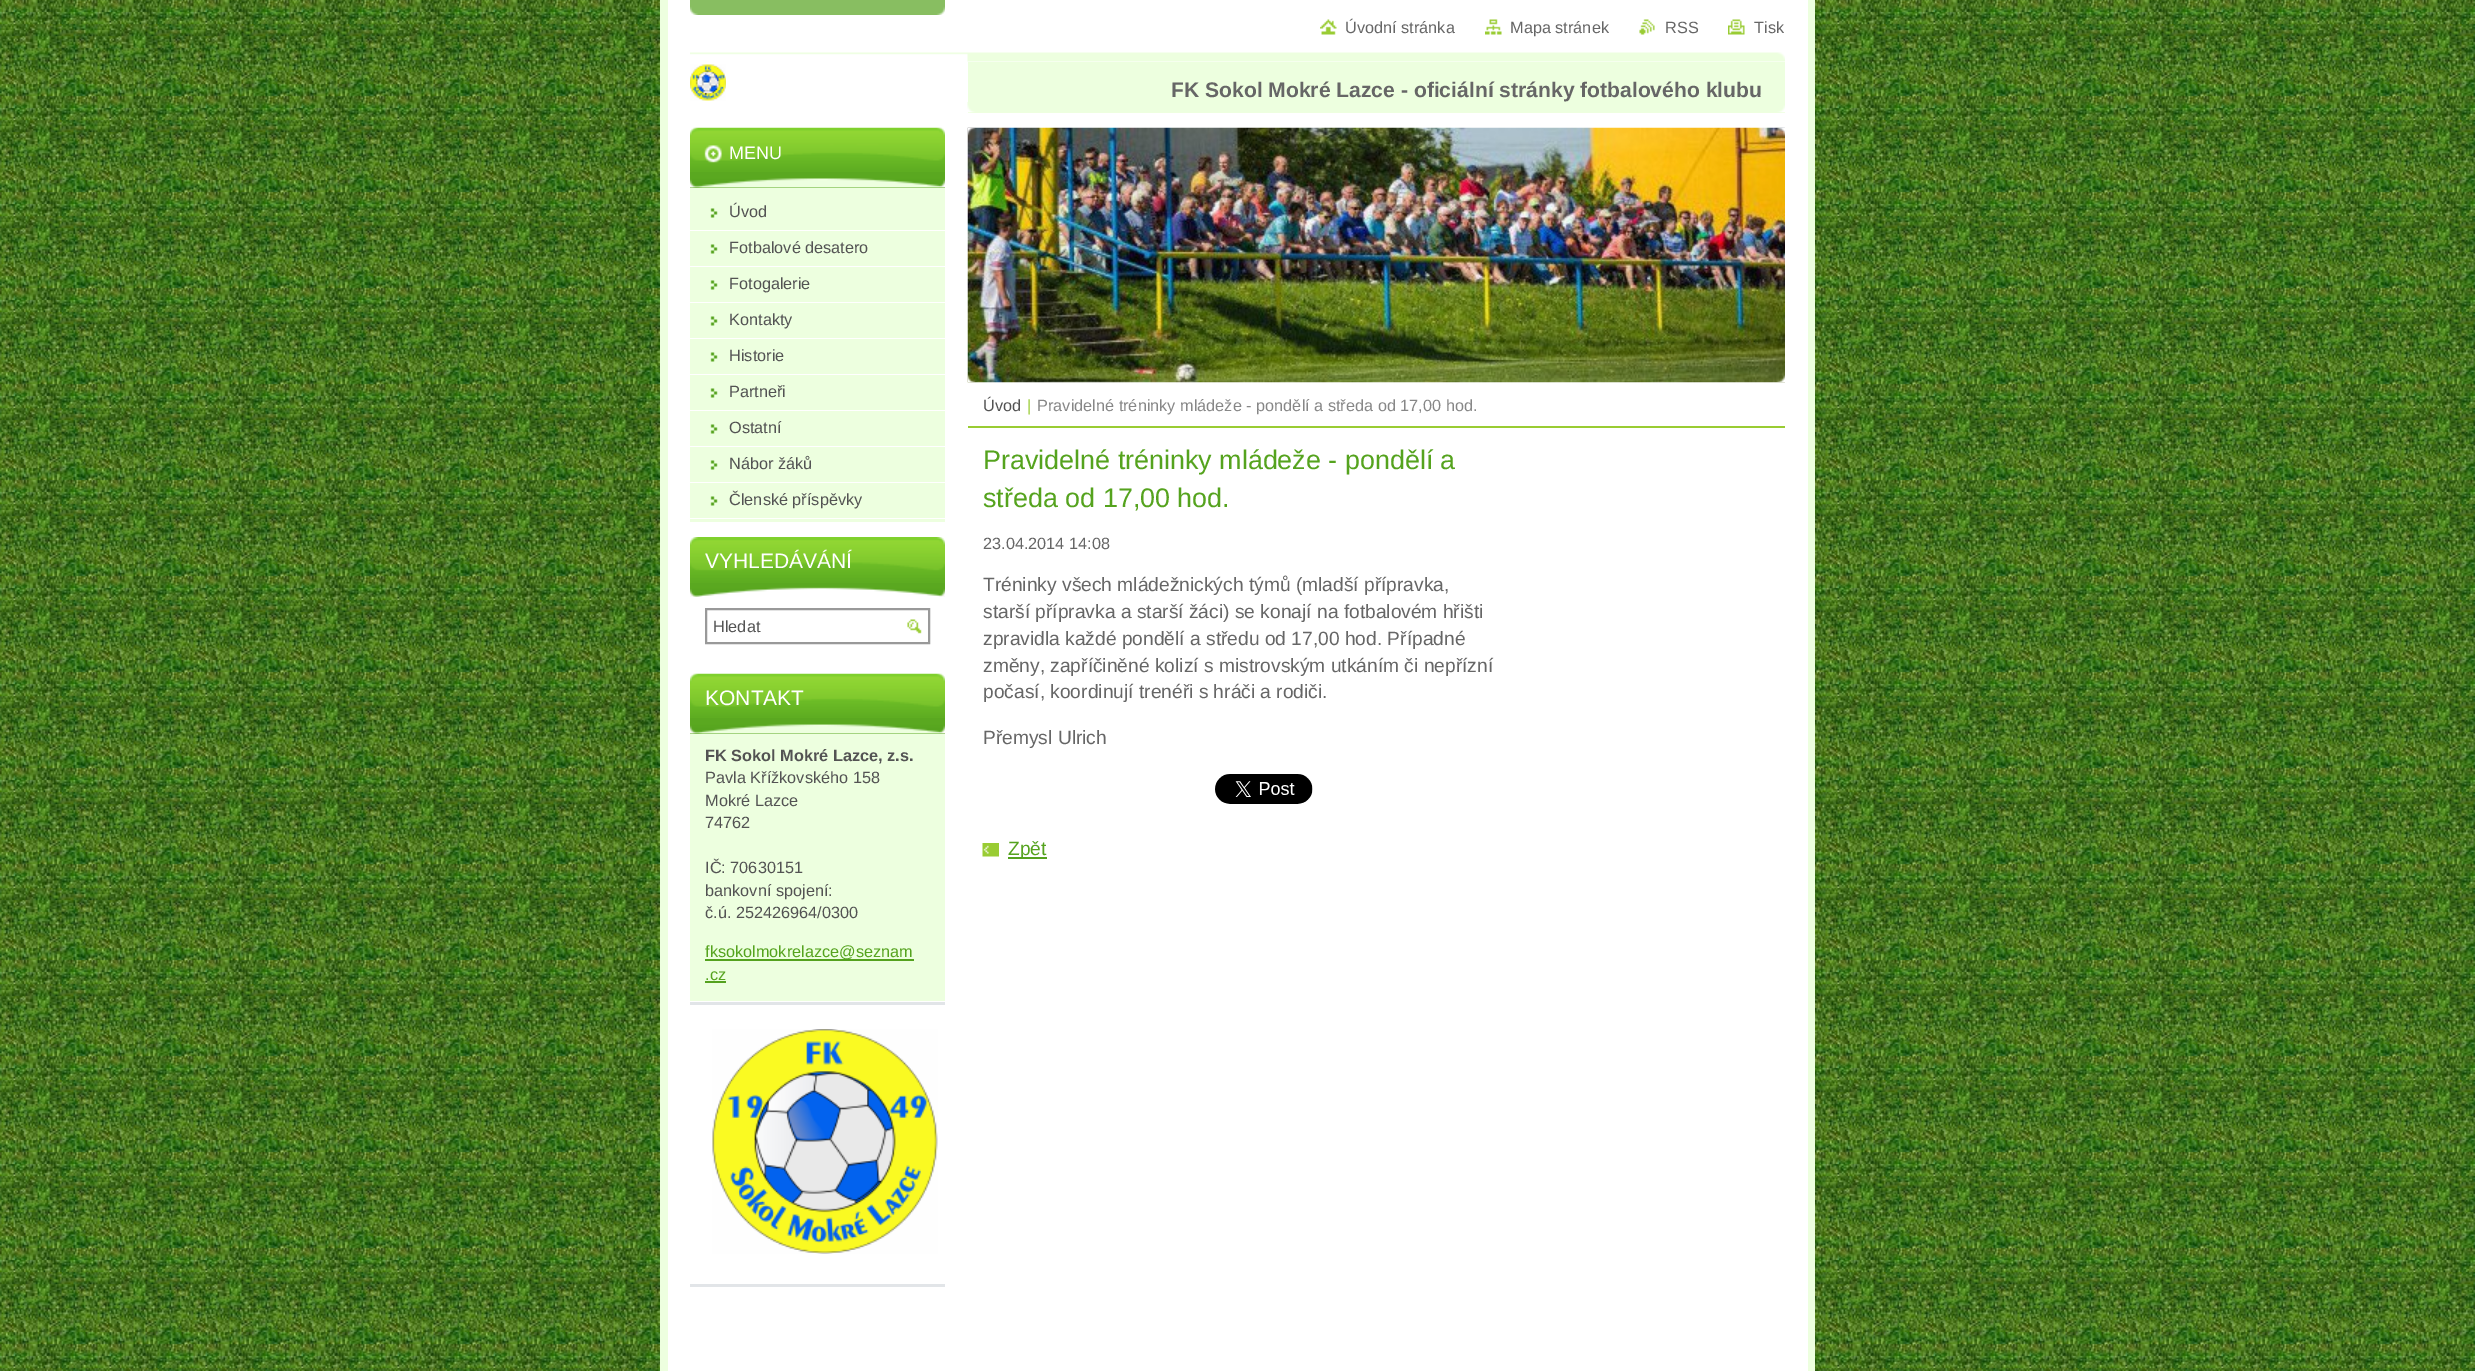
%!PS-Adobe-3.0
%%BoundingBox: 0 0 2475 1371
%%LanguageLevel: 3
%%Pages: 1
%%EndComments
%%BeginProlog
/setink { 3 { 255 div 3 1 roll } repeat setrgbcolor } def
/usefont { [ exch dup neg 0 0 3 -1 roll 0 0 ] selectfont } def
/drawtext { setink usefont moveto show } def
/fillbox { setink rectfill } def
/drawimage { 5 dict begin { /h /w /y /x /name } { exch def } forall
  gsave x y translate w h scale
  w h 8 [w 0 0 h 0 0] name (r) file false 3 colorimage grestore end } def
%%EndProlog
%%BeginSetup
<< /PageSize [2475 1371] >> setpagedevice
%%EndSetup
%%Page: 1 1
0 1371 translate 1 -1 scale
4 setmiterlimit
0 0 2475 1371 255 255 255 fillbox
(assets/img1.rgb) 0 0 2475 1371 drawimage
668 0 1140 1371 255 255 255 fillbox
(assets/img2.rgb) 690 0 255 15 drawimage
1808 0 7 1371 237 255 223 fillbox
660 0 8 1371 237 255 223 fillbox
(assets/img3.rgb) 1320 19 17 16 drawimage
(Úvodní stránka) 1345 33 /LiberationSans-Regular 16.3 102 102 102 drawtext
(assets/img4.rgb) 1485 19 17 16 drawimage
(Mapa stránek) 1510 33 /LiberationSans-Regular 16.3 102 102 102 drawtext
(assets/img5.rgb) 1639 19 16 16 drawimage
(RSS) 1665 33 /LiberationSans-Regular 16.3 102 102 102 drawtext
(assets/img6.rgb) 1728 19 17 16 drawimage
(Tisk) 1754 33 /LiberationSans-Regular 16.3 102 102 102 drawtext
(assets/img7.rgb) 690 52 1095 10 drawimage
(assets/img8.rgb) 690 64 36 37 drawimage
968 62 817 51 237 255 223 fillbox
(assets/img9.rgb) 967 102 818 11 drawimage
(FK Sokol Mokré Lazce - oficiální stránky fotbalového klubu) 1171 97 /LiberationSans-Bold 21.1 102 102 102 drawtext
690 519 255 3 237 255 223 fillbox
690 188 255 42 237 255 223 fillbox
690 172 255 16 90 168 32 fillbox
(assets/img10.rgb) 690 127 255 45 drawimage
(assets/img11.rgb) 690 178 255 10 drawimage
(MENU) 729 159 /LiberationSans-Regular 18 255 255 255 drawtext
(assets/img12.rgb) 710 208 8 10 drawimage
(Úvod) 729 217 /LiberationSans-Regular 16.3 83 83 83 drawtext
690 231 255 35 237 255 223 fillbox
(assets/img12.rgb) 710 244 8 10 drawimage
(Fotbalové desatero) 729 253 /LiberationSans-Regular 16.3 83 83 83 drawtext
690 267 255 35 237 255 223 fillbox
(assets/img12.rgb) 710 280 8 10 drawimage
(Fotogalerie) 729 289 /LiberationSans-Regular 16.3 83 83 83 drawtext
690 303 255 35 237 255 223 fillbox
(assets/img12.rgb) 710 316 8 10 drawimage
(Kontakty) 729 325 /LiberationSans-Regular 16.3 83 83 83 drawtext
690 339 255 35 237 255 223 fillbox
(assets/img12.rgb) 710 352 8 10 drawimage
(Historie) 729 361 /LiberationSans-Regular 16.3 83 83 83 drawtext
690 375 255 35 237 255 223 fillbox
(assets/img12.rgb) 710 388 8 10 drawimage
(Partneři) 729 397 /LiberationSans-Regular 16.3 83 83 83 drawtext
690 411 255 35 237 255 223 fillbox
(assets/img12.rgb) 710 424 8 10 drawimage
(Ostatní) 729 433 /LiberationSans-Regular 16.3 83 83 83 drawtext
690 447 255 35 237 255 223 fillbox
(assets/img12.rgb) 710 460 8 10 drawimage
(Nábor žáků) 729 469 /LiberationSans-Regular 16.3 83 83 83 drawtext
690 483 255 35 237 255 223 fillbox
(assets/img12.rgb) 710 496 8 10 drawimage
(Členské příspěvky) 729 505 /LiberationSans-Regular 16.3 83 83 83 drawtext
690 583 255 6 90 168 32 fillbox
(assets/img13.rgb) 690 537 255 46 drawimage
(assets/img14.rgb) 690 587 255 10 drawimage
(VYHLEDÁVÁNÍ) 705 568 /LiberationSans-Regular 21 255 255 255 drawtext
153 153 153 setink
2 setlinewidth
706 609 223 34 rectstroke
(Hledat) 713 632 /LiberationSans-Regular 16.3 83 83 83 drawtext
(assets/img15.rgb) 907 619 15 15 drawimage
690 1002 255 3 226 229 232 fillbox
690 734 255 267 237 255 223 fillbox
690 718 255 16 90 168 32 fillbox
(assets/img16.rgb) 690 673 255 45 drawimage
(assets/img17.rgb) 690 724 255 10 drawimage
(KONTAKT) 705 705 /LiberationSans-Regular 21 255 255 255 drawtext
(FK Sokol Mokré Lazce, z.s.) 705 761 /LiberationSans-Bold 16.3 83 83 83 drawtext
(Pavla Křížkovského 158) 705 783 /LiberationSans-Regular 16.3 83 83 83 drawtext
(Mokré Lazce) 705 806 /LiberationSans-Regular 16.3 83 83 83 drawtext
(74762) 705 828 /LiberationSans-Regular 16.3 83 83 83 drawtext
(IČ: 70630151) 705 873 /LiberationSans-Regular 16.3 83 83 83 drawtext
(bankovní spojení:) 705 896 /LiberationSans-Regular 16.3 83 83 83 drawtext
(č.ú. 252426964/0300) 705 918 /LiberationSans-Regular 16.3 83 83 83 drawtext
705 959 209 2 84 162 30 fillbox
(fksokolmokrelazce@seznam) 705 957 /LiberationSans-Regular 16.3 85 163 30 drawtext
(.cz) 705 980 /LiberationSans-Regular 16.3 85 163 30 drawtext
705 981 21 2 84 162 30 fillbox
690 1284 255 3 226 229 232 fillbox
(assets/img18.rgb) 712 1029 226 225 drawimage
(assets/img19.rgb) 967 127 818 256 drawimage
(assets/img20.rgb) 967 127 818 256 drawimage
968 426 817 2 153 204 51 fillbox
(Úvod) 983 411 /LiberationSans-Regular 16.3 83 83 83 drawtext
(|) 1027 411 /LiberationSans-Regular 16.3 153 204 51 drawtext
(Pravidelné tréninky mládeže - pondělí a středa od 17,00 hod.) 1037 411 /LiberationSans-Regular 16.3 135 135 135 drawtext
(Pravidelné tréninky mládeže - pondělí a) 983 469 /LiberationSans-Regular 26.9 85 163 30 drawtext
(středa od 17,00 hod.) 983 507 /LiberationSans-Regular 26.9 85 163 30 drawtext
(23.04.2014 14:08) 983 549 /LiberationSans-Regular 16.3 102 102 102 drawtext
(Tréninky všech mládežnických týmů \(mladší přípravka,) 983 591 /LiberationSans-Regular 19.2 102 102 102 drawtext
(starší přípravka a starší žáci\) se konají na fotbalovém hřišti) 983 618 /LiberationSans-Regular 19.2 102 102 102 drawtext
(zpravidla každé pondělí a středu od 17,00 hod. Případné) 983 645 /LiberationSans-Regular 19.2 102 102 102 drawtext
(změny, zapříčiněné kolizí s mistrovským utkáním či nepřízní) 983 672 /LiberationSans-Regular 19.2 102 102 102 drawtext
(počasí, koordinují trenéři s hráči a rodiči.) 983 698 /LiberationSans-Regular 19.2 102 102 102 drawtext
(Přemysl Ulrich) 983 744 /LiberationSans-Regular 19.2 102 102 102 drawtext
(assets/img21.rgb) 1215 774 98 30 drawimage
(assets/img22.rgb) 982 843 17 14 drawimage
1008 857 39 2 84 162 30 fillbox
(Zpět) 1008 855 /LiberationSans-Regular 19.2 85 163 30 drawtext
showpage
%%EOF
